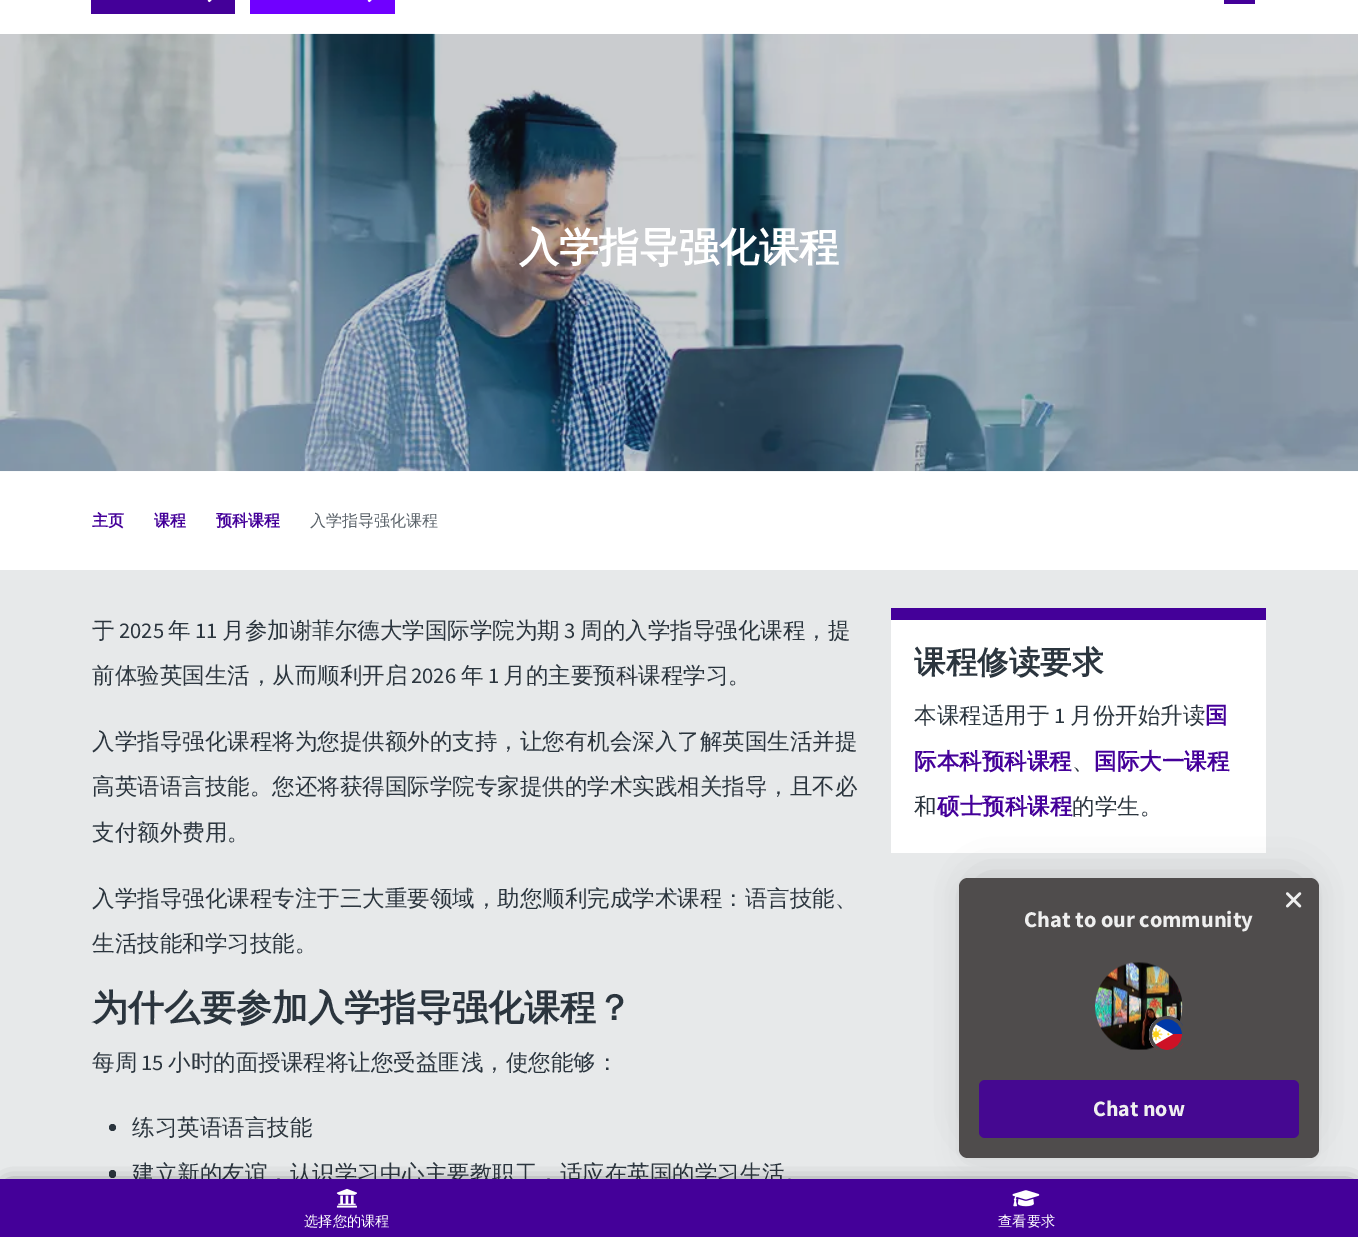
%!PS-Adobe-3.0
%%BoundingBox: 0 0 1358 1237
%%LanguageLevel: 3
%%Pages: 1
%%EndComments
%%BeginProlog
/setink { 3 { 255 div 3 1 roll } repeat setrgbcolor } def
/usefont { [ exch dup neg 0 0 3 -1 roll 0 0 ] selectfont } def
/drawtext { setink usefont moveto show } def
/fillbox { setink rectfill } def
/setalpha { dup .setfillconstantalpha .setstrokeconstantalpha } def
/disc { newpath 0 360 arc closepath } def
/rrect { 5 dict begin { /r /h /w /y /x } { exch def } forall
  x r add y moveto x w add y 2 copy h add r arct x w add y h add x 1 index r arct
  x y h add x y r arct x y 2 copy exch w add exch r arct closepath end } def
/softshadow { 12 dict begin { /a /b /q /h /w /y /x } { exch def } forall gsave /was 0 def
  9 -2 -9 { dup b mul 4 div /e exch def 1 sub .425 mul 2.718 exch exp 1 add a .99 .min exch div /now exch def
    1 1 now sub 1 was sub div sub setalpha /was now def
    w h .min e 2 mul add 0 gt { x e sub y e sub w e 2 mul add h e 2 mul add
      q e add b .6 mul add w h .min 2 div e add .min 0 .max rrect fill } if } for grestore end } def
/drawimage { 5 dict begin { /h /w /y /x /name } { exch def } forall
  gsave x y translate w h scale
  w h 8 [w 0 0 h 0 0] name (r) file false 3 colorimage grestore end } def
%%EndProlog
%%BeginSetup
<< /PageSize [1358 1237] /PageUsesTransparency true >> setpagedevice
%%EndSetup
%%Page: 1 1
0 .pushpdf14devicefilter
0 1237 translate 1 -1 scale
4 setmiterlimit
0 0 1358 1237 255 255 255 fillbox
91 0 144 14 68 0 153 fillbox
(assets/img1.rgb) 207 0 5 3 drawimage
250 0 145 14 112 0 255 fillbox
(assets/img2.rgb) 367 0 5 3 drawimage
1224 0 31 4 68 0 153 fillbox
0 570 1358 609 231 233 234 fillbox
(assets/img3.rgb) 0 33 1358 439 drawimage
(入学指导强化课程) 519 261 /WenQuanYiZenHei-Bold 40 255 255 255 drawtext
(主页) 92 526 /WenQuanYiZenHei-Bold 16 68 0 153 drawtext
(课程) 154 526 /WenQuanYiZenHei-Bold 16 68 0 153 drawtext
(预科课程) 216 526 /WenQuanYiZenHei-Bold 16 68 0 153 drawtext
(入学指导强化课程) 310 526 /WenQuanYiZenHei-Medium 16 90 98 105 drawtext
(于) 92 638 /WenQuanYiZenHei-Medium 22.5 43 53 62 drawtext
(2025) 119 638 /SourceSansPro-Regular 22.5 43 53 62 drawtext
(年) 168 638 /WenQuanYiZenHei-Medium 22.5 43 53 62 drawtext
(11) 195 638 /SourceSansPro-Regular 22.5 43 53 62 drawtext
(月参加谢菲尔德大学国际学院为期) 222 638 /WenQuanYiZenHei-Medium 22.5 43 53 62 drawtext
(3) 564 638 /SourceSansPro-Regular 22.5 43 53 62 drawtext
(周的入学指导强化课程，提) 580 638 /WenQuanYiZenHei-Medium 22.5 43 53 62 drawtext
(前体验英国生活，从而顺利开启) 92 683 /WenQuanYiZenHei-Medium 22.5 43 53 62 drawtext
(2026) 411 683 /SourceSansPro-Regular 22.5 43 53 62 drawtext
(年) 461 683 /WenQuanYiZenHei-Medium 22.5 43 53 62 drawtext
(1) 488 683 /SourceSansPro-Regular 22.5 43 53 62 drawtext
(月的主要预科课程学习。) 503 683 /WenQuanYiZenHei-Medium 22.5 43 53 62 drawtext
(入学指导强化课程将为您提供额外的支持，让您有机会深入了解英国生活并提) 92 749 /WenQuanYiZenHei-Medium 22.5 43 53 62 drawtext
(高英语语言技能。您还将获得国际学院专家提供的学术实践相关指导，且不必) 92 794 /WenQuanYiZenHei-Medium 22.5 43 53 62 drawtext
(支付额外费用。) 92 840 /WenQuanYiZenHei-Medium 22.5 43 53 62 drawtext
(入学指导强化课程专注于三大重要领域，助您顺利完成学术课程：语言技能、) 92 906 /WenQuanYiZenHei-Medium 22.5 43 53 62 drawtext
(生活技能和学习技能。) 92 951 /WenQuanYiZenHei-Medium 22.5 43 53 62 drawtext
(为什么要参加入学指导强化课程？) 92 1020 /WenQuanYiZenHei-Bold 36 43 53 62 drawtext
(每周) 92 1070 /WenQuanYiZenHei-Medium 22.5 43 53 62 drawtext
(15) 141 1070 /SourceSansPro-Regular 22.5 43 53 62 drawtext
(小时的面授课程将让您受益匪浅，使您能够：) 168 1070 /WenQuanYiZenHei-Medium 22.5 43 53 62 drawtext
112.5 1127.5 3.5 disc fill
(练习英语语言技能) 132 1135 /WenQuanYiZenHei-Medium 22.5 43 53 62 drawtext
109 1170 7 8 3.5 rrect fill
(建立新的友谊，认识学习中心主要教职工，适应在英国的学习生活。) 132 1181 /WenQuanYiZenHei-Medium 22.5 43 53 62 drawtext
891 608 375 12 68 0 153 fillbox
891 620 375 233 255 255 255 fillbox
(课程修读要求) 914 673 /WenQuanYiZenHei-Bold 31.5 43 53 62 drawtext
(本课程适用于) 914 723 /WenQuanYiZenHei-Medium 22.5 43 53 62 drawtext
(1) 1054 723 /SourceSansPro-Regular 22.5 43 53 62 drawtext
(月份开始升读) 1070 723 /WenQuanYiZenHei-Medium 22.5 43 53 62 drawtext
(国) 1205 723 /WenQuanYiZenHei-Bold 22.5 68 0 153 drawtext
(际本科预科课程) 914 769 /WenQuanYiZenHei-Bold 22.5 68 0 153 drawtext
(、) 1072 769 /WenQuanYiZenHei-Medium 22.5 43 53 62 drawtext
(国际大一课程) 1094 769 /WenQuanYiZenHei-Bold 22.5 68 0 153 drawtext
(和) 914 814 /WenQuanYiZenHei-Medium 22.5 43 53 62 drawtext
(硕士预科课程) 937 814 /WenQuanYiZenHei-Bold 22.5 68 0 153 drawtext
(的学生。) 1072 814 /WenQuanYiZenHei-Medium 22.5 43 53 62 drawtext
0 0 0 setink
9 1188 1341 41 0 9.5 1 softshadow
0 1179 1358 58 68 0 153 fillbox
(assets/img4.rgb) 336 1188 21 20 drawimage
(选择您的课程) 304 1226 /WenQuanYiZenHei-Medium 14.25 255 255 255 drawtext
(assets/img5.rgb) 1012 1190 28 17 drawimage
(查看要求) 998 1226 /WenQuanYiZenHei-Medium 14.25 255 255 255 drawtext
0 0 0 setink
983 886 312 233 0 22 0.2 softshadow
966 891 345 265 1 14 0.1 softshadow
79 76 76 setink
959 878 360 280 9 rrect fill
(assets/img6.rgb) 1286 892 16 16 drawimage
(Chat to our community) 1024 927 /SourceSansPro-Bold 22.5 239 239 239 drawtext
(assets/img7.rgb) 1095 962 88 88 drawimage
(assets/img8.rgb) 1149 1019 34 31 drawimage
gsave
1095 963 88 87 rectclip
79 76 76 setink
3 setlinewidth
1150.5 1017.5 33 34 16.5 rrect stroke
grestore
69 8 145 setink
979 1080 320 58 6 rrect fill
(Chat now) 1093 1116 /SourceSansPro-Bold 22 239 239 239 drawtext
.poppdf14devicefilter showpage
%%EOF
